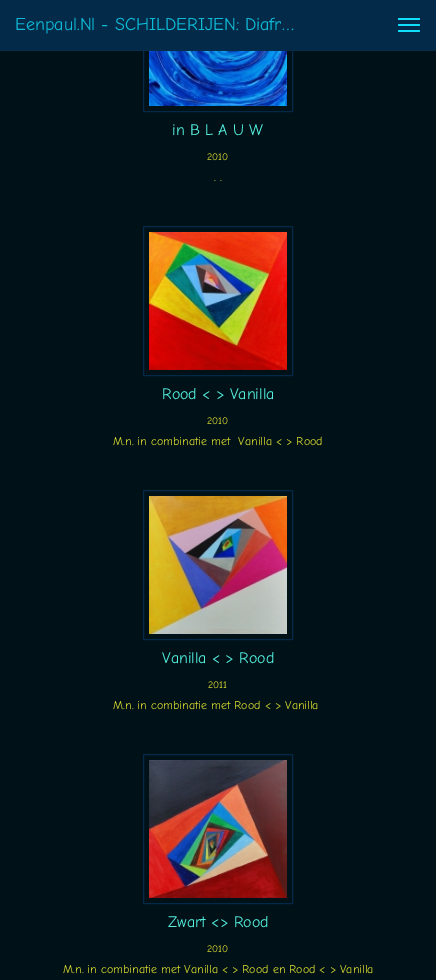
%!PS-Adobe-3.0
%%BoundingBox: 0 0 436 980
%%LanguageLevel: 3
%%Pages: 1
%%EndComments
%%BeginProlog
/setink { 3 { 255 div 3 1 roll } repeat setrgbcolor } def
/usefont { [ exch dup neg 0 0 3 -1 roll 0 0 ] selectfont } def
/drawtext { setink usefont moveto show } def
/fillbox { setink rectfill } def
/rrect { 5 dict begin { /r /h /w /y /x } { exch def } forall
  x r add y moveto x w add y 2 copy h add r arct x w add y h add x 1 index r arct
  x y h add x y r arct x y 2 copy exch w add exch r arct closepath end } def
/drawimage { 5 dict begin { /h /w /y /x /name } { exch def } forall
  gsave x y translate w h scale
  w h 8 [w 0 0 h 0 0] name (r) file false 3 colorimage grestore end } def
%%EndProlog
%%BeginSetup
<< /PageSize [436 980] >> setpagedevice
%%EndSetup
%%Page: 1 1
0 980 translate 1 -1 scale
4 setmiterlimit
0 0 436 980 1 17 24 fillbox
3 43 73 setink
143.5 -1.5 149 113 0.5 rrect stroke
0 0 436 50 3 43 73 fillbox
0 50 436 1 6 45 76 fillbox
(Eenpaul.Nl - SCHILDERIJEN: Diafr…) 15 30 /ComicNeue-Regular 18 13 187 215 drawtext
15 223 251 setink
398 18 22 2 1 rrect fill
398 24 22 2 1 rrect fill
398 30 22 2 1 rrect fill
(assets/img1.rgb) 149 51 138 55 drawimage
(in B L A U W) 172 135 /ComicNeue-Regular 16 84 240 222 drawtext
(2010) 207 160 /ComicNeue-Regular 10 214 217 48 drawtext
(. .) 214 181 /ComicNeue-Regular 12 214 217 48 drawtext
3 43 73 setink
143.5 226.5 149 149 0.5 rrect stroke
(assets/img2.rgb) 149 232 138 138 drawimage
(Rood < > Vanilla) 162 399 /ComicNeue-Regular 16 84 240 222 drawtext
(2010) 207 424 /ComicNeue-Regular 10 214 217 48 drawtext
(M.n. in combinatie met  Vanilla < > Rood) 113 445 /ComicNeue-Regular 12 214 217 48 drawtext
3 43 73 setink
143.5 490.5 149 149 0.5 rrect stroke
(assets/img3.rgb) 149 496 138 138 drawimage
(Vanilla < > Rood) 162 663 /ComicNeue-Regular 16 84 240 222 drawtext
(2011) 208 688 /ComicNeue-Regular 10 214 217 48 drawtext
(M.n. in combinatie met Rood < > Vanilla) 113 709 /ComicNeue-Regular 12 214 217 48 drawtext
3 43 73 setink
143.5 754.5 149 149 0.5 rrect stroke
(assets/img4.rgb) 149 760 138 138 drawimage
(Zwart <> Rood) 168 927 /ComicNeue-Regular 16 84 240 222 drawtext
(2010) 207 952 /ComicNeue-Regular 10 214 217 48 drawtext
(M.n. in combinatie met Vanilla < > Rood en Rood < > Vanilla) 63 973 /ComicNeue-Regular 12 214 217 48 drawtext
showpage
%%EOF
